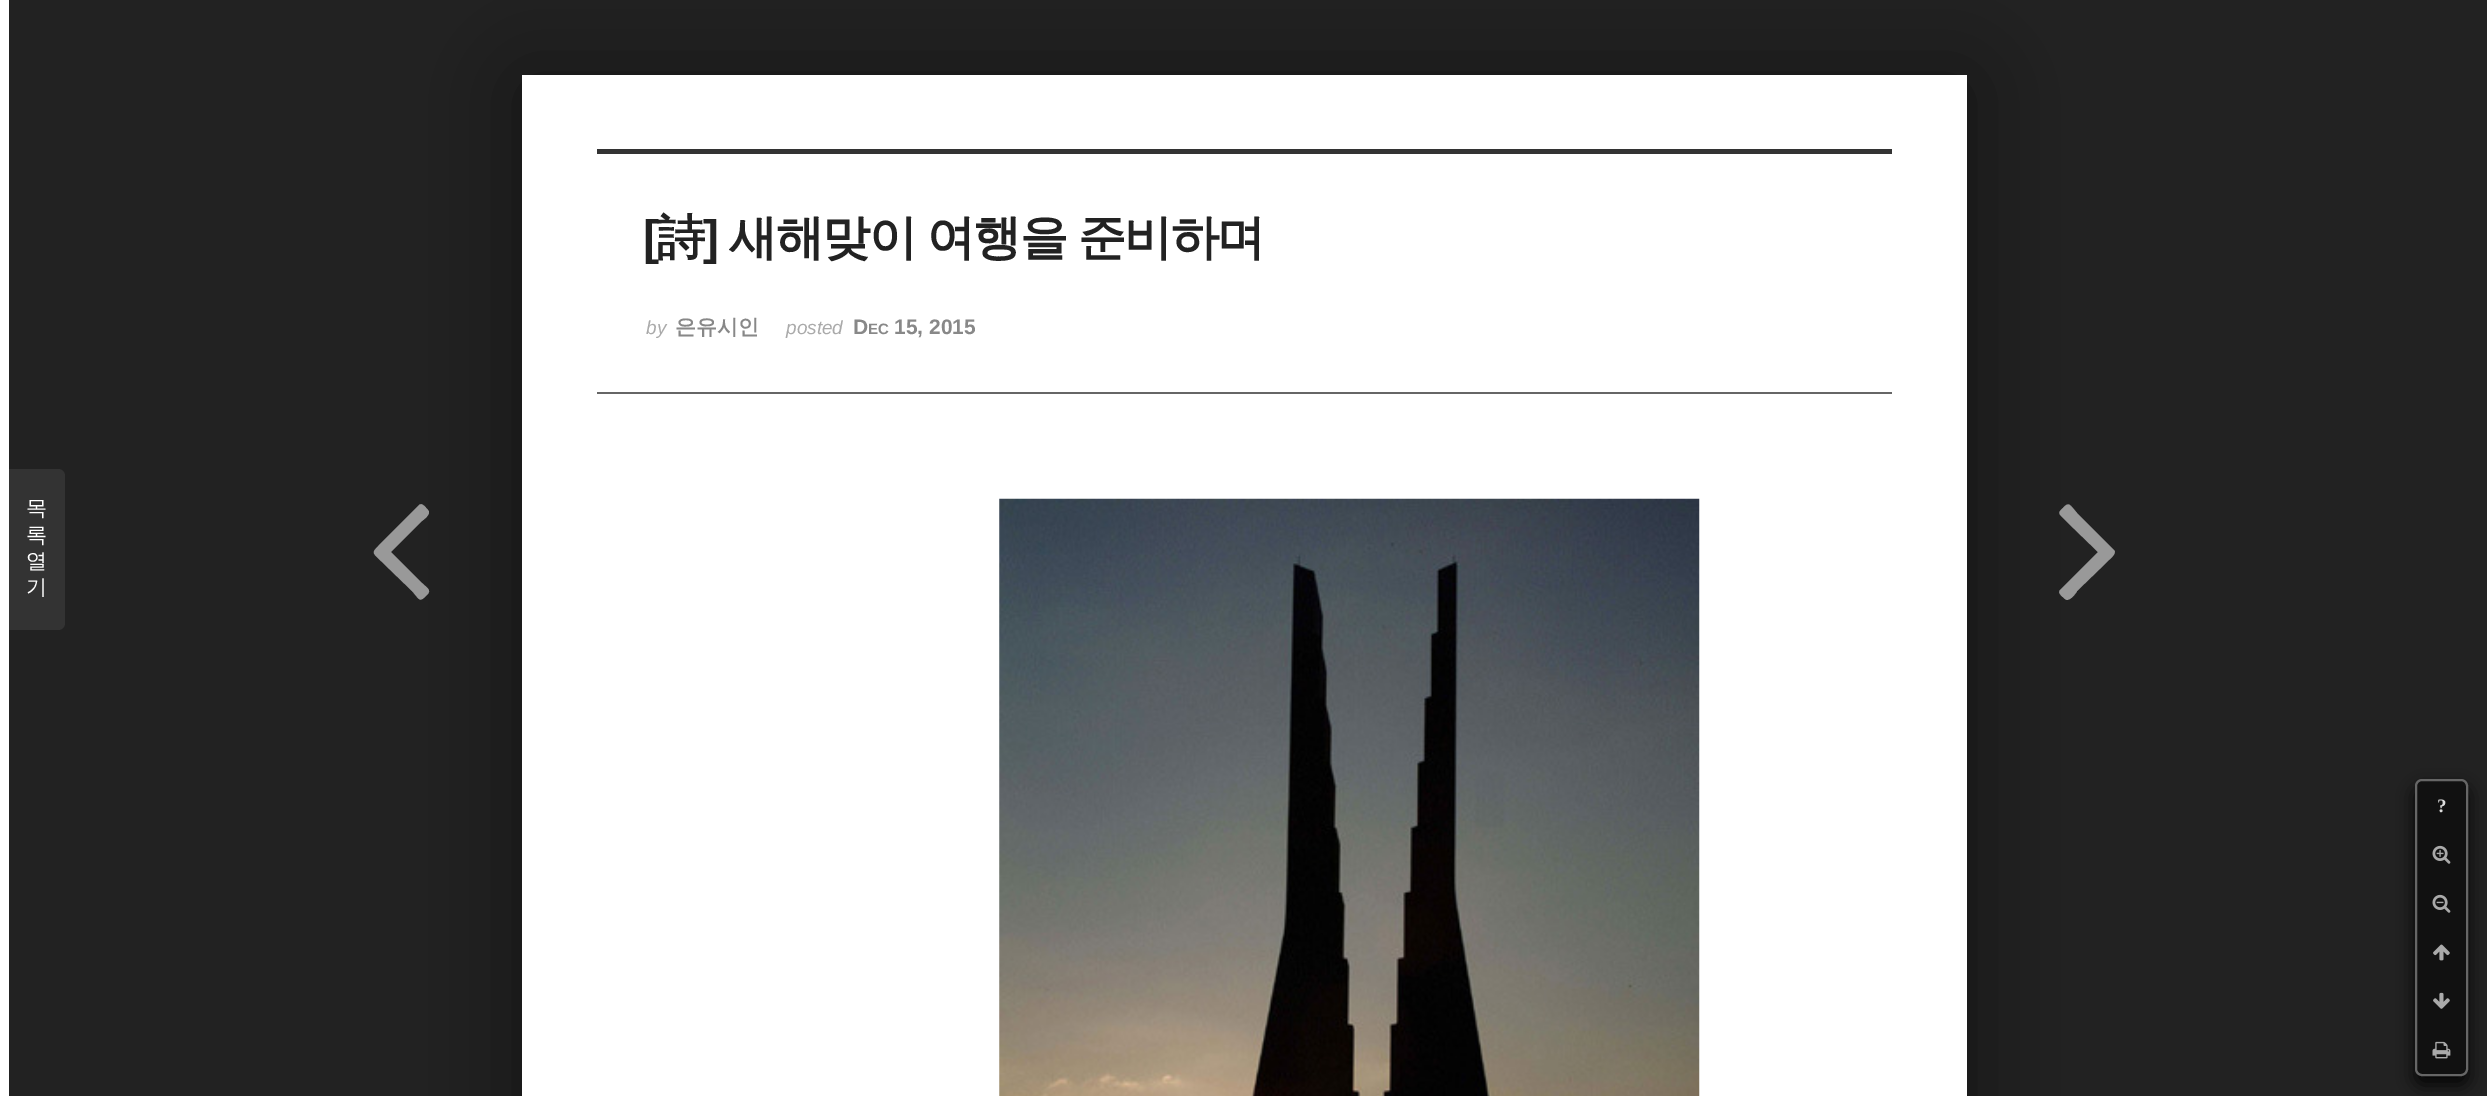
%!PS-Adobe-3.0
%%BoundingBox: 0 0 2487 1096
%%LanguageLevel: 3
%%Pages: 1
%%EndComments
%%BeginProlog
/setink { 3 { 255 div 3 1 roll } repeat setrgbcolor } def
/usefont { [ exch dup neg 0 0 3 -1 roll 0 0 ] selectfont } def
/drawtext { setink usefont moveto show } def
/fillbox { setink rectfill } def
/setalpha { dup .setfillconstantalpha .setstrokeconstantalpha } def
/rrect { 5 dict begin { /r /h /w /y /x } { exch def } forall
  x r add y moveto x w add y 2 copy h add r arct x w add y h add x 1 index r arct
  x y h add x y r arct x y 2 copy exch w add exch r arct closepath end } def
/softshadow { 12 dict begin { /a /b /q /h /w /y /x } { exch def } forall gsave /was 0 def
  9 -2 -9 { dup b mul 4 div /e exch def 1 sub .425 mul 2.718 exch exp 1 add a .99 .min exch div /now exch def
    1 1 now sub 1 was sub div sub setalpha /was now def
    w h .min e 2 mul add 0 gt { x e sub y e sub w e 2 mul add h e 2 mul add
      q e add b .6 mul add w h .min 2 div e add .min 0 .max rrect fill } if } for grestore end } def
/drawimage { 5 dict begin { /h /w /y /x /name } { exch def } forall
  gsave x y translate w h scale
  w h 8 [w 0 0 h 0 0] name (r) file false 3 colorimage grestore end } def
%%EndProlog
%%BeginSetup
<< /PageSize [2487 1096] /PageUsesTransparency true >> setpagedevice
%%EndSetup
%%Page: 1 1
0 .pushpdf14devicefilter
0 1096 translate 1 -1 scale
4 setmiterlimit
0 0 2487 1096 34 34 34 fillbox
0 0 0 setink
522 82 1445 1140 0 42 0.5 softshadow
522 75 1445 1021 255 255 255 fillbox
0 0 9 1096 255 255 255 fillbox
51 51 51 setink
9 469 moveto 58 469 lineto 62 469 65 472 65 476 curveto 65 623 lineto 65 627 62 630 58 630 curveto 9 630 lineto closepath fill
(목) 26 515 /WenQuanYiZenHei-Medium 21 255 255 255 drawtext
(록) 26 542 /WenQuanYiZenHei-Medium 21 255 255 255 drawtext
(열) 26 568 /WenQuanYiZenHei-Medium 21 255 255 255 drawtext
(기) 26 594 /WenQuanYiZenHei-Medium 21 255 255 255 drawtext
597 149 1295 5 51 51 51 fillbox
597 392 1295 2 102 102 102 fillbox
/LiberationSans-Bold 48.25 usefont
34 34 34 setink
643 254 moveto -1.75 0 ([) ashow
/WenQuanYiZenHei-Bold 48.25 usefont
657 254 moveto -1.75 0 (詩) ashow
/LiberationSans-Bold 48.25 usefont
703 254 moveto -1.75 0 (]) ashow
/WenQuanYiZenHei-Bold 48.25 usefont
729 254 moveto -1 0 32 -1.75 0 (새해맞이 여행을 준비하며) awidthshow
(by) 646 334 /LiberationSans-Italic 19 170 170 170 drawtext
(은유시인) 675 334 /WenQuanYiZenHei-Bold 21 136 136 136 drawtext
(posted) 786 334 /LiberationSans-Italic 19 170 170 170 drawtext
(D) 853 334 /LiberationSans-Bold 21 136 136 136 drawtext
(EC) 868 334 /LiberationSans-Bold 15 136 136 136 drawtext
(15, 2015) 894 334 /LiberationSans-Bold 21 136 136 136 drawtext
0 0 0 setink
2415 788 53 297 7 9 0.9 softshadow
17 17 17 setink
2416 780 51 295 6 rrect gsave fill grestore
102 102 102 setink
2 setlinewidth
stroke
/LiberationSerif-Bold 19 usefont
221 221 221 setink
2437 812 moveto -1.75 0 (?) ashow
(assets/img1.rgb) 2432 845 19 19 drawimage
(assets/img2.rgb) 2432 894 19 19 drawimage
(assets/img3.rgb) 2433 944 17 17 drawimage
(assets/img4.rgb) 2433 992 17 17 drawimage
(assets/img5.rgb) 2432 1041 19 18 drawimage
(assets/img6.rgb) 999 498 701 598 drawimage
153 153 153 setink
428 510 moveto 432 514 423 520 422 521 curveto 391 552 lineto 422 583 lineto 427 588 432 590 427 595 curveto 419 603 420 600 412 591 curveto 382 562 lineto 371 551 371 554 382 542 curveto 419 505 lineto 422 502 426 508 428 510 curveto closepath fill
2114 550 moveto 2118 554 2107 561 2107 562 curveto 2077 591 lineto 2077 592 2069 603 2065 599 curveto 2063 597 2057 593 2060 590 curveto 2098 552 lineto 2066 521 lineto 2060 514 2056 514 2063 508 curveto 2069 501 2070 505 2077 513 curveto closepath fill
.poppdf14devicefilter showpage
%%EOF
